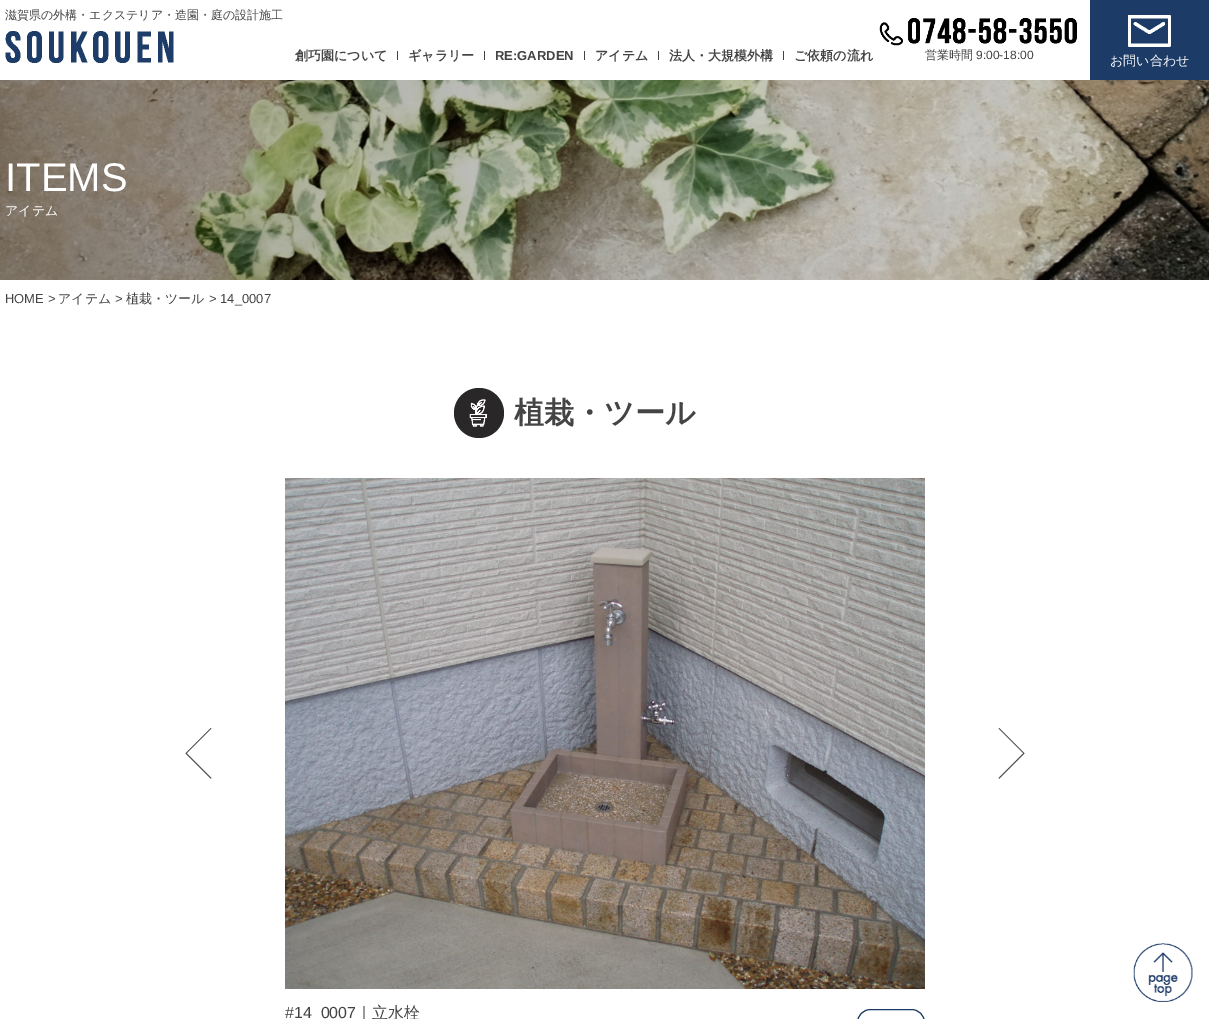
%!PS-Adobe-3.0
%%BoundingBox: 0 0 1209 1019
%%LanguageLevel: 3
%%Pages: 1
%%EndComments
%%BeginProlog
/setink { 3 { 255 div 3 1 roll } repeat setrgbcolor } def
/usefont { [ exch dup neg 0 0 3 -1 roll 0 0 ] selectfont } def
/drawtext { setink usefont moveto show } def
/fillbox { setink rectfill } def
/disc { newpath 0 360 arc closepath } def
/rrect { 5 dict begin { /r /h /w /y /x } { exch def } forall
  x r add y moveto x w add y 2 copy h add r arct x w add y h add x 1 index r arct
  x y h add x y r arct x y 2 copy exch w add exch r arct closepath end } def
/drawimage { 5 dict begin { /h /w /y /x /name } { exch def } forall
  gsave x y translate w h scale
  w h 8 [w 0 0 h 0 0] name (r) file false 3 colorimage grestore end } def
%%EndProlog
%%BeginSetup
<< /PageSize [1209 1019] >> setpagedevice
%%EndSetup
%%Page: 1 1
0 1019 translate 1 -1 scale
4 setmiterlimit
0 0 1209 1019 255 255 255 fillbox
(滋賀県の外構・エクステリア・造園・庭の設計施工) 5 19 /WenQuanYiZenHei-Medium 12 68 68 68 drawtext
(assets/img1.rgb) 5 31 169 32 drawimage
397 51 1 9 68 68 68 fillbox
(創巧園について) 295 60 /WenQuanYiZenHei-Bold 13 68 68 68 drawtext
484 51 1 9 68 68 68 fillbox
(ギャラリー) 408 60 /WenQuanYiZenHei-Bold 13 68 68 68 drawtext
584 51 1 9 68 68 68 fillbox
(RE:GARDEN) 495 60 /LiberationSans-Bold 13 68 68 68 drawtext
658 51 1 9 68 68 68 fillbox
(アイテム) 595 60 /WenQuanYiZenHei-Bold 13 68 68 68 drawtext
783 51 1 9 68 68 68 fillbox
(法人・大規模外構) 669 60 /WenQuanYiZenHei-Bold 13 68 68 68 drawtext
(ご依頼の流れ) 794 60 /WenQuanYiZenHei-Bold 13 68 68 68 drawtext
(assets/img2.rgb) 879 18 198 28 drawimage
(営業時間) 925 59 /WenQuanYiZenHei-Medium 12 68 68 68 drawtext
(9:00-18:00) 976 59 /LiberationSans-Regular 12 68 68 68 drawtext
1090 0 119 80 29 59 103 fillbox
(assets/img3.rgb) 1128 15 43 32 drawimage
(お問い合わせ) 1110 65 /WenQuanYiZenHei-Medium 13 255 255 255 drawtext
(assets/img4.rgb) 0 80 1209 200 drawimage
(ITEMS) 5 191 /LiberationSans-Regular 40 255 255 255 drawtext
(アイテム) 5 215 /WenQuanYiZenHei-Medium 13 255 255 255 drawtext
(HOME >) 5 303 /LiberationSans-Regular 13 68 68 68 drawtext
(アイテム) 58 303 /WenQuanYiZenHei-Medium 13 68 68 68 drawtext
(>) 115 303 /LiberationSans-Regular 13 68 68 68 drawtext
(植栽・ツール) 126 303 /WenQuanYiZenHei-Medium 13 68 68 68 drawtext
(> 14_0007) 209 303 /LiberationSans-Regular 13 68 68 68 drawtext
41 39 40 setink
479 413 25 disc fill
(assets/img5.rgb) 469 399 18 28 drawimage
(植栽・ツール) 514 423 /WenQuanYiZenHei-Bold 30 68 68 68 drawtext
(assets/img6.rgb) 285 478 640 511 drawimage
(assets/img7.rgb) 185 728 27 51 drawimage
(assets/img8.rgb) 998 728 27 51 drawimage
(#14_0007) 285 1018 /LiberationSans-Regular 16 68 68 68 drawtext
(｜立水栓) 356 1018 /WenQuanYiZenHei-Medium 16 68 68 68 drawtext
29 59 103 setink
857.5 1009.5 67 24 13 rrect stroke
(assets/img9.rgb) 1133 943 60 59 drawimage
showpage
%%EOF
